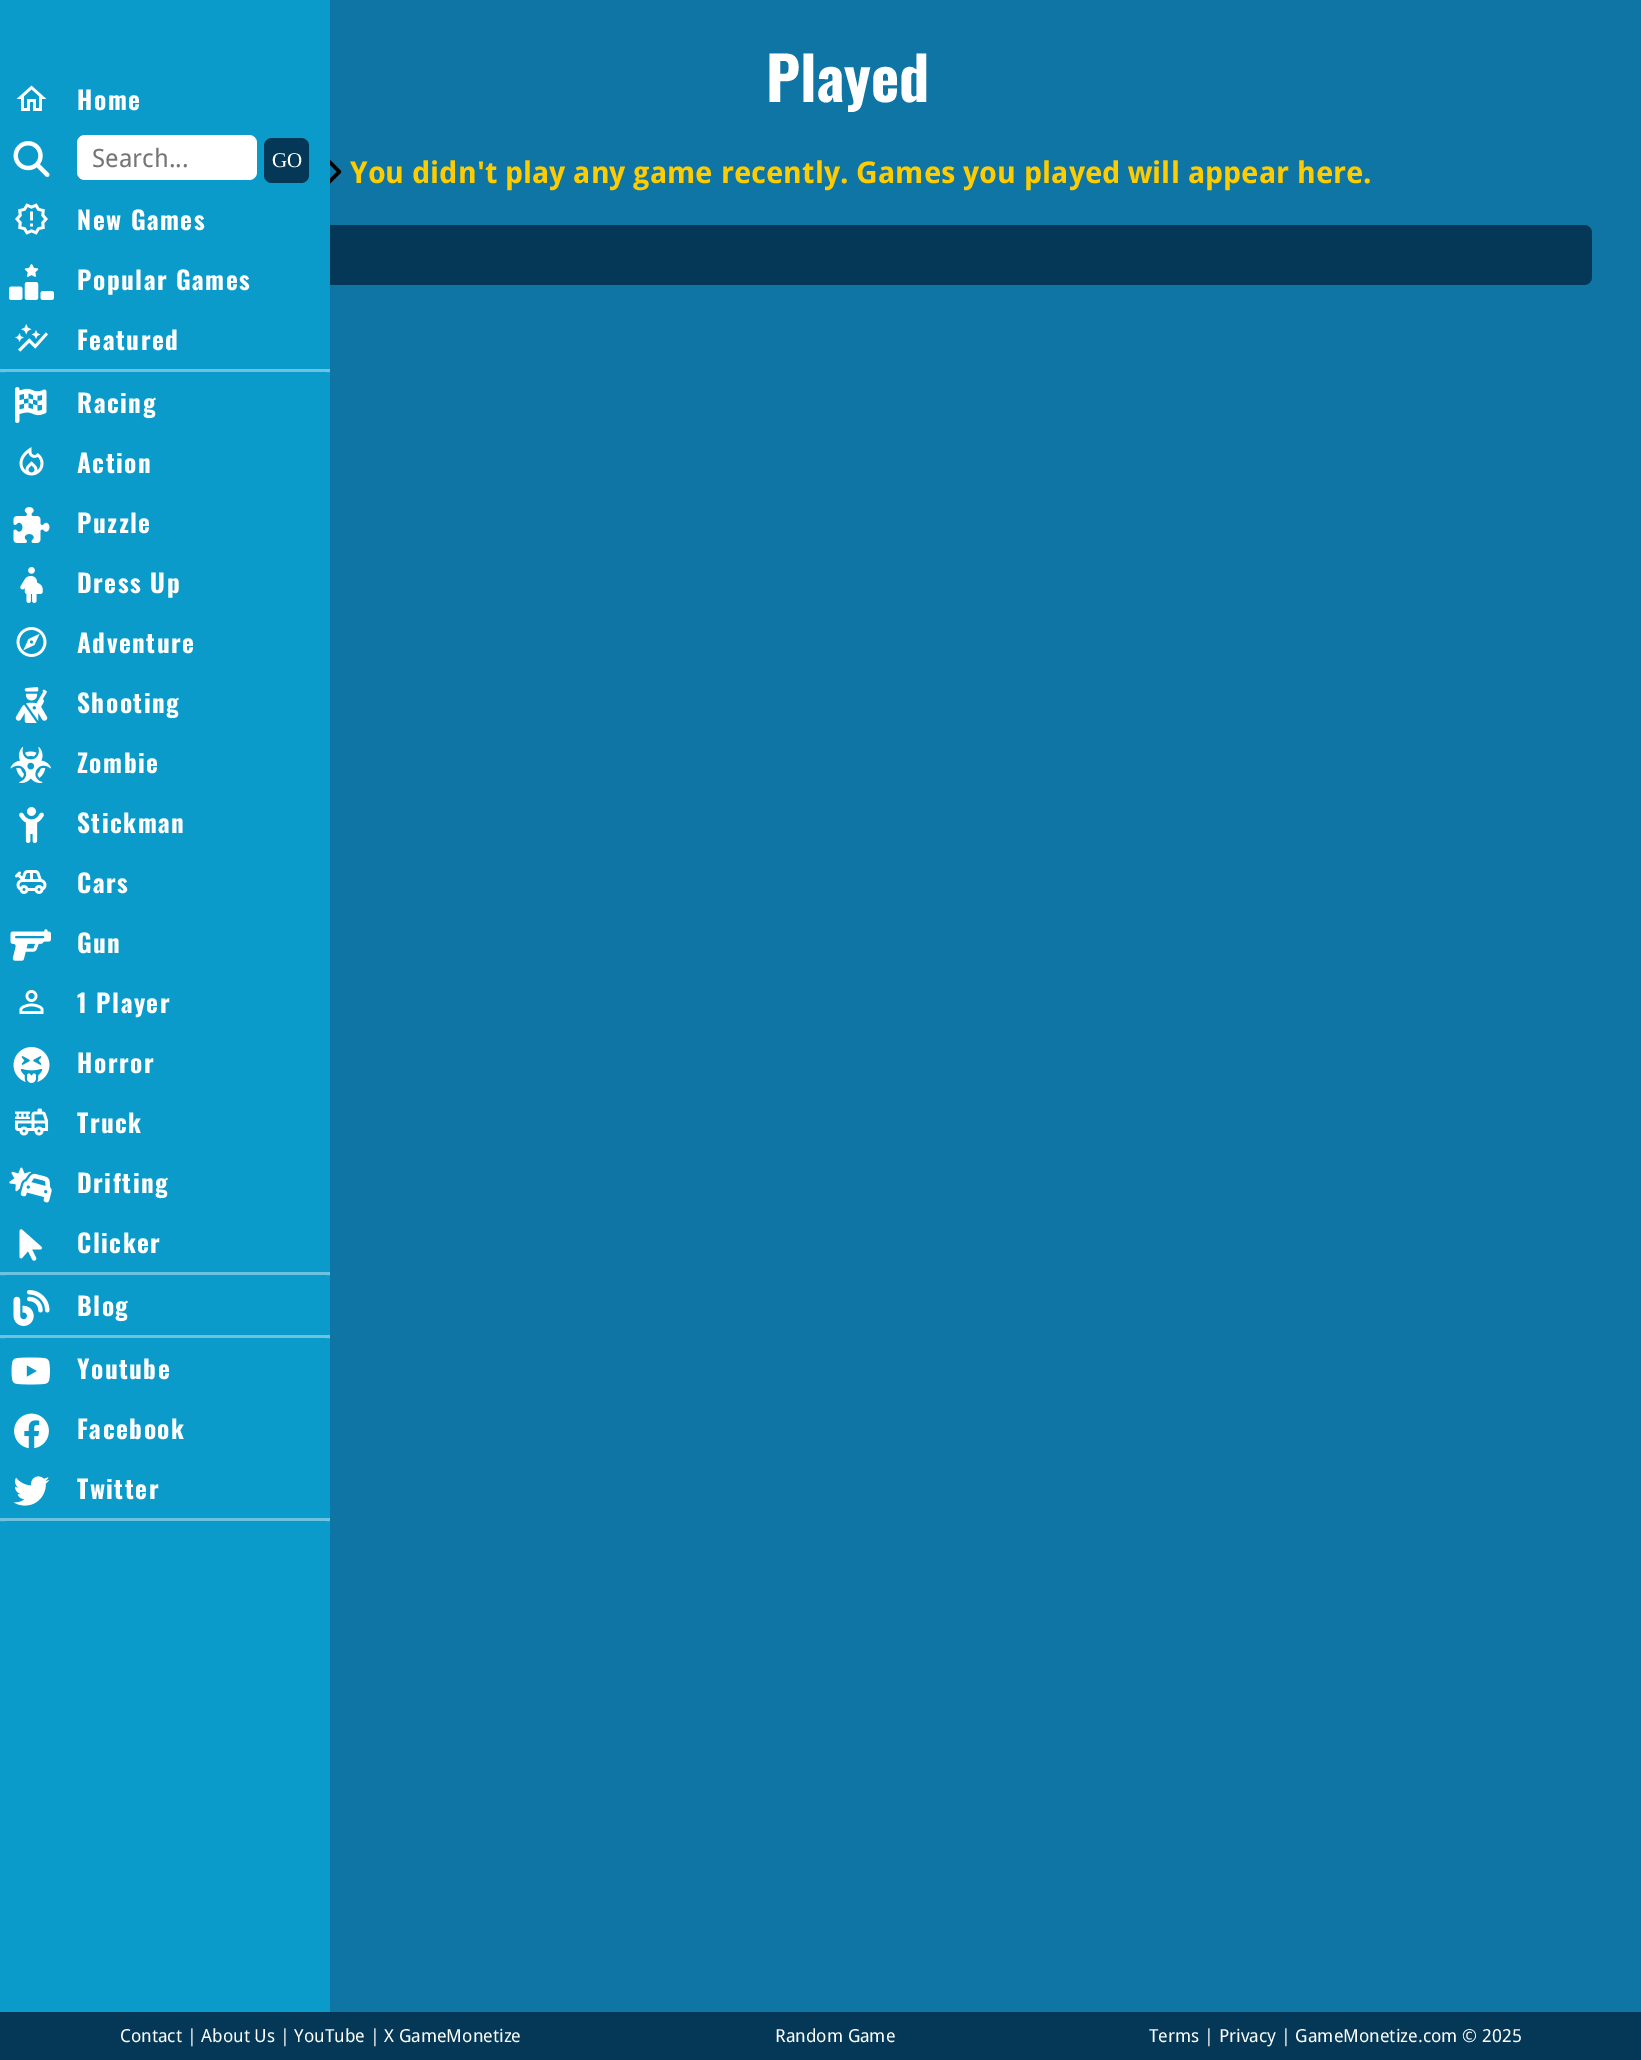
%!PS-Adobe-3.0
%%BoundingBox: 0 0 1641 2060
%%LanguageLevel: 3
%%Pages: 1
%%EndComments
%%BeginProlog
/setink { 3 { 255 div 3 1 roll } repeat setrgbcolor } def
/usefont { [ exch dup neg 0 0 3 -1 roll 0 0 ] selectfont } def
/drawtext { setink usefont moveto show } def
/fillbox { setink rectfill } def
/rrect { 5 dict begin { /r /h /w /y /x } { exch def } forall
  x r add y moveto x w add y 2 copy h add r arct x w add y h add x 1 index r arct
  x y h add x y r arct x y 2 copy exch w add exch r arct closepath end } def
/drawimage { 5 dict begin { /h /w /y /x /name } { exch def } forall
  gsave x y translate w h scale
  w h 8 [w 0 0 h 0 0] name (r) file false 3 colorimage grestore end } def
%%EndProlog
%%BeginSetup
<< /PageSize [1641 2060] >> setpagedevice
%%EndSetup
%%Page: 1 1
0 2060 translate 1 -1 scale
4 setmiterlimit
0 0 1641 2060 15 117 165 fillbox
4 56 86 setink
104 225 1488 60 8 rrect fill
0 0 330 2012 11 155 202 fillbox
(assets/img1.rgb) 16 85 31 26 drawimage
/Oswald-Bold 25.25 usefont
255 255 255 setink
77 110 moveto 1.5 0 (Home) ashow
(assets/img2.rgb) 13 141 37 36 drawimage
77 135 180 45 8 rrect fill
(Search...) 92 167 /DroidSans-Regular 25.25 117 117 117 drawtext
4 56 86 setink
264 138 45 45 8 rrect fill
(GO) 272 167 /LiberationSerif-Regular 21 255 255 255 drawtext
(assets/img3.rgb) 15 203 33 32 drawimage
/Oswald-Bold 25.25 usefont
77 230 moveto 1.5 0 (New Games) ashow
(assets/img4.rgb) 9 264 45 36 drawimage
77 290 moveto 1.5 0 (Popular Games) ashow
(assets/img5.rgb) 15 324 33 28 drawimage
77 350 moveto 1.5 0 (Featured) ashow
109 195 223 setink
16 369 moveto 330 369 lineto 330 373 330 372 327 372 curveto 5 372 lineto 1 372 -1 373 0 369 curveto closepath fill
(assets/img6.rgb) 15 387 32 36 drawimage
255 255 255 setink
77 413 moveto 1.5 0 (Racing) ashow
(assets/img7.rgb) 19 447 25 29 drawimage
77 473 moveto 1.5 0 (Action) ashow
(assets/img8.rgb) 13 507 37 36 drawimage
77 533 moveto 1.5 0 (Puzzle) ashow
(assets/img9.rgb) 20 567 23 36 drawimage
77 593 moveto 1.5 0 (Dress Up) ashow
(assets/img10.rgb) 16 627 31 30 drawimage
77 653 moveto 1.5 0 (Adventure) ashow
(assets/img11.rgb) 15 687 33 36 drawimage
77 713 moveto 1.5 0 (Shooting) ashow
(assets/img12.rgb) 10 747 41 36 drawimage
77 773 moveto 1.5 0 (Zombie) ashow
(assets/img13.rgb) 19 807 25 36 drawimage
77 833 moveto 1.5 0 (Stickman) ashow
(assets/img14.rgb) 15 870 32 24 drawimage
77 893 moveto 1.5 0 (Cars) ashow
(assets/img15.rgb) 10 929 41 32 drawimage
77 953 moveto 1.5 0 (Gun) ashow
(assets/img16.rgb) 19 990 25 24 drawimage
77 1013 moveto 1.5 0 (1 Player) ashow
(assets/img17.rgb) 13 1047 37 36 drawimage
77 1073 moveto 1.5 0 (Horror) ashow
(assets/img18.rgb) 14 1108 35 28 drawimage
77 1133 moveto 1.5 0 (Truck) ashow
(assets/img19.rgb) 9 1167 43 36 drawimage
77 1193 moveto 1.5 0 (Drifting) ashow
(assets/img20.rgb) 19 1229 23 32 drawimage
77 1253 moveto 1.5 0 (Clicker) ashow
109 195 223 setink
16 1272 moveto 330 1272 lineto 330 1276 330 1275 327 1275 curveto 5 1275 lineto 1 1275 -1 1276 0 1272 curveto closepath fill
(assets/img21.rgb) 13 1290 37 36 drawimage
255 255 255 setink
77 1316 moveto 1.5 0 (Blog) ashow
109 195 223 setink
16 1335 moveto 330 1335 lineto 330 1339 330 1338 327 1338 curveto 5 1338 lineto 1 1338 -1 1339 0 1335 curveto closepath fill
(assets/img22.rgb) 11 1357 39 28 drawimage
255 255 255 setink
77 1379 moveto 1.5 0 (Youtube) ashow
(assets/img23.rgb) 14 1413 35 36 drawimage
77 1439 moveto 1.5 0 (Facebook) ashow
(assets/img24.rgb) 13 1476 37 30 drawimage
77 1499 moveto 1.5 0 (Twitter) ashow
109 195 223 setink
16 1518 moveto 330 1518 lineto 330 1522 330 1521 327 1521 curveto 5 1521 lineto 1 1521 -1 1522 0 1518 curveto closepath fill
(Played) 766 102 /Oswald-Bold 60 255 255 255 drawtext
(assets/img25.rgb) 330 159 12 25 drawimage
(You didn't play any game recently. Games you played will appear here.) 350 183 /DroidSans-Bold 30 255 204 0 drawtext
0 2012 1641 48 4 56 86 fillbox
(Contact | About Us | YouTube | X GameMonetize) 120 2042 /DroidSans-Regular 18 255 255 255 drawtext
(Random Game) 775 2042 /DroidSans-Regular 18 255 255 255 drawtext
(Terms | Privacy | GameMonetize.com © 2025) 1149 2042 /DroidSans-Regular 18 255 255 255 drawtext
showpage
%%EOF
